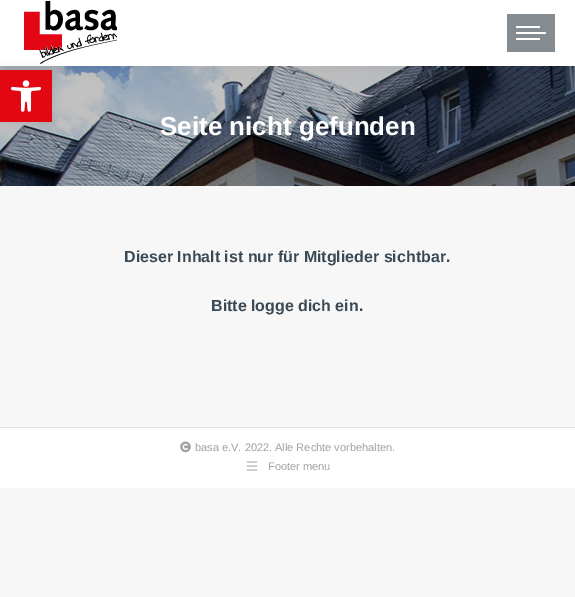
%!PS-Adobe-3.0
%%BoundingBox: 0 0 575 597
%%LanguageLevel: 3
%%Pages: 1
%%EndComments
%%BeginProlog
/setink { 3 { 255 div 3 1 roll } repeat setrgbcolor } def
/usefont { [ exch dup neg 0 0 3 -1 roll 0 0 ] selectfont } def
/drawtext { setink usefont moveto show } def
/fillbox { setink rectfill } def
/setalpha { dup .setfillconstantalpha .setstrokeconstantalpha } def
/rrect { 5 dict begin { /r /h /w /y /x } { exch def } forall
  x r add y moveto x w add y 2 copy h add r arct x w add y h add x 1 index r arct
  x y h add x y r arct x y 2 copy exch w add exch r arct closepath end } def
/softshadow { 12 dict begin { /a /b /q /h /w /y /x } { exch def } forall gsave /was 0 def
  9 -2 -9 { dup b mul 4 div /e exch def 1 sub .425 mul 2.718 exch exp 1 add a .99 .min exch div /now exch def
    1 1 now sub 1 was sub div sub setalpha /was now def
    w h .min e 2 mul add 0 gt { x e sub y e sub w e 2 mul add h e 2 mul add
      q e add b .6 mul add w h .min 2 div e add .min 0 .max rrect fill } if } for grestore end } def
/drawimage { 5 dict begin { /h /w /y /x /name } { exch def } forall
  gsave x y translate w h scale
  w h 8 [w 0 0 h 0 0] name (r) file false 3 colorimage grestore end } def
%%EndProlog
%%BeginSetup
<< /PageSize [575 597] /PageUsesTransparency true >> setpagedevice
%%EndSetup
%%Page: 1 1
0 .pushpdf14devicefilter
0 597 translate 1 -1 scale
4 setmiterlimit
0 0 575 597 247 247 247 fillbox
(assets/img3.rgb) 0 66 575 120 drawimage
0 0 0 setink
-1 -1 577 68 0 7.5 0.07 softshadow
0 0 575 66 255 255 255 fillbox
(assets/img2.rgb) 24 1 93 63 drawimage
0 0 0 setink
0 70 52 52 0 5 0.1 softshadow
0 70 52 52 227 6 19 fillbox
(assets/img1.rgb) 11 80 30 32 drawimage
507 14 48 38 133 140 145 fillbox
255 255 255 setink
516 26 24 2 1 rrect fill
516 32 30 2 1 rrect fill
516 38 24 2 1 rrect fill
(Seite nicht gefunden) 160 135 /LiberationSans-Bold 26 255 255 255 drawtext
(Dieser Inhalt ist nur für Mitglieder sichtbar.) 124 262 /LiberationSans-Bold 16 58 73 84 drawtext
(Bitte logge dich ein.) 211 311 /LiberationSans-Bold 16 58 73 84 drawtext
0 427 575 1 227 225 221 fillbox
0 428 575 60 255 255 255 fillbox
(assets/img4.rgb) 180 441 11 12 drawimage
(basa e.V. 2022. Alle Rechte vorbehalten.) 195 451 /LiberationSans-Regular 11 160 160 160 drawtext
(assets/img5.rgb) 246 461 12 10 drawimage
(Footer menu) 268 470 /LiberationSans-Regular 11 160 160 160 drawtext
.poppdf14devicefilter showpage
%%EOF
